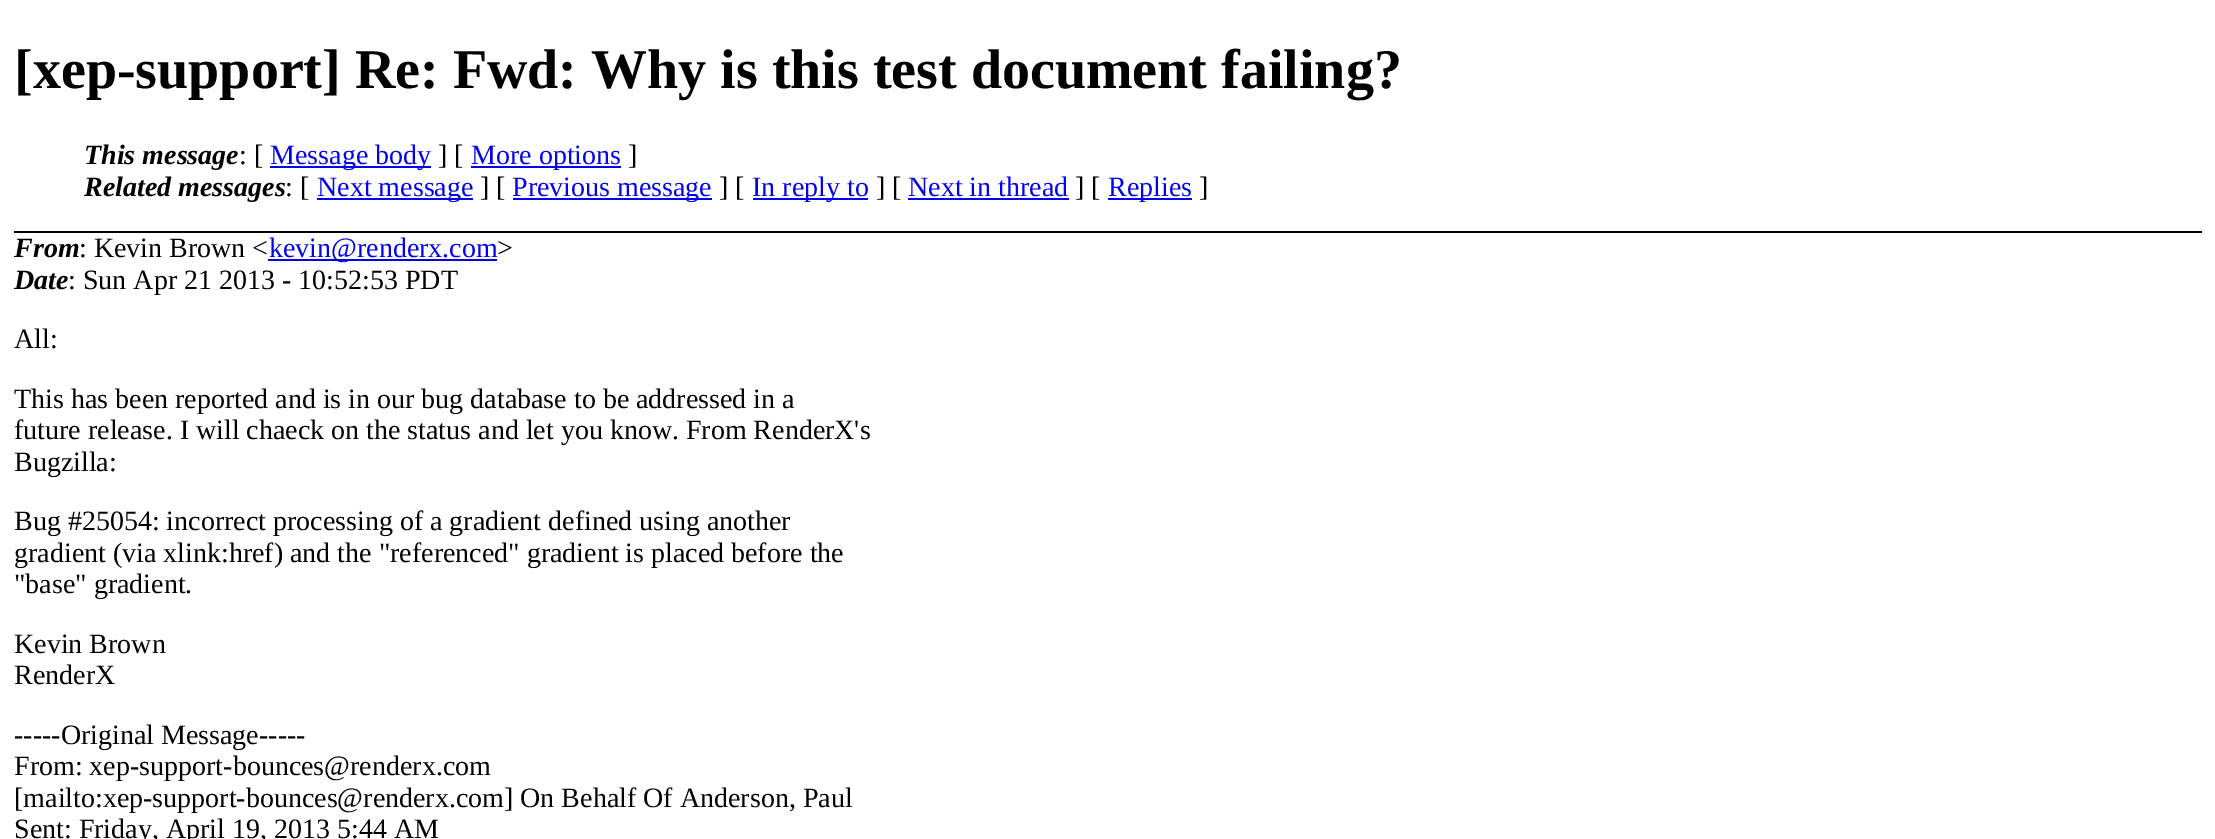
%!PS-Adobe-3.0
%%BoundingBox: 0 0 2215 839
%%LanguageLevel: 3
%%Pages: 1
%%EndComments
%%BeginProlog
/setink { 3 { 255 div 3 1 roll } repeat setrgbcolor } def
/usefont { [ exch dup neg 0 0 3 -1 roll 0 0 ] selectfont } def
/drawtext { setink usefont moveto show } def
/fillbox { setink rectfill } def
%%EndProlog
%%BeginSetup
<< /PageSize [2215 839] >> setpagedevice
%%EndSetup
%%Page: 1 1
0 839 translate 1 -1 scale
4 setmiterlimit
0 0 2215 839 255 255 255 fillbox
14 231 2188 2 0 0 0 fillbox
([xep-support] Re: Fwd: Why is this test document failing?) 14 88 /LiberationSerif-Bold 56 0 0 0 drawtext
(This message) 84 164 /LiberationSerif-BoldItalic 28 0 0 0 drawtext
(: [) 239 164 /LiberationSerif-Regular 28 0 0 0 drawtext
270 166 161 2 0 0 238 fillbox
(Message body) 270 164 /LiberationSerif-Regular 28 0 0 238 drawtext
(] [) 438 164 /LiberationSerif-Regular 28 0 0 0 drawtext
471 166 150 2 0 0 238 fillbox
(More options) 471 164 /LiberationSerif-Regular 28 0 0 238 drawtext
(]) 628 164 /LiberationSerif-Regular 28 0 0 0 drawtext
(Related messages) 84 196 /LiberationSerif-BoldItalic 28 0 0 0 drawtext
(: [) 285 196 /LiberationSerif-Regular 28 0 0 0 drawtext
317 198 156 2 0 0 238 fillbox
(Next message) 317 196 /LiberationSerif-Regular 28 0 0 238 drawtext
(] [) 480 196 /LiberationSerif-Regular 28 0 0 0 drawtext
513 198 199 2 0 0 238 fillbox
(Previous message) 512 196 /LiberationSerif-Regular 28 0 0 238 drawtext
(] [) 719 196 /LiberationSerif-Regular 28 0 0 0 drawtext
753 198 115 2 0 0 238 fillbox
(In reply to) 752 196 /LiberationSerif-Regular 28 0 0 238 drawtext
(] [) 876 196 /LiberationSerif-Regular 28 0 0 0 drawtext
(Next in thread) 908 196 /LiberationSerif-Regular 28 0 0 238 drawtext
908 198 161 2 0 0 238 fillbox
(] [) 1075 196 /LiberationSerif-Regular 28 0 0 0 drawtext
1108 198 84 2 0 0 238 fillbox
(Replies) 1108 196 /LiberationSerif-Regular 28 0 0 238 drawtext
(]) 1199 196 /LiberationSerif-Regular 28 0 0 0 drawtext
(From) 14 257 /LiberationSerif-BoldItalic 28 0 0 0 drawtext
(: Kevin Brown <) 79 257 /LiberationSerif-Regular 28 0 0 0 drawtext
268 259 229 2 0 0 238 fillbox
(kevin@renderx.com) 269 257 /LiberationSerif-Regular 28 0 0 238 drawtext
(>) 497 257 /LiberationSerif-Regular 28 0 0 0 drawtext
(Date) 14 289 /LiberationSerif-BoldItalic 28 0 0 0 drawtext
(: Sun Apr 21 2013 - 10:52:53 PDT) 68 289 /LiberationSerif-Regular 28 0 0 0 drawtext
(All:) 14 348 /LiberationSerif-Regular 28 0 0 0 drawtext
(This has been reported and is in our bug database to be addressed in a) 14 408 /LiberationSerif-Regular 28 0 0 0 drawtext
(future release. I will chaeck on the status and let you know. From RenderX's) 14 439 /LiberationSerif-Regular 28 0 0 0 drawtext
(Bugzilla:) 14 471 /LiberationSerif-Regular 28 0 0 0 drawtext
(Bug #25054: incorrect processing of a gradient defined using another) 14 530 /LiberationSerif-Regular 28 0 0 0 drawtext
(gradient \(via xlink:href\) and the "referenced" gradient is placed before the) 14 562 /LiberationSerif-Regular 28 0 0 0 drawtext
("base" gradient.) 14 593 /LiberationSerif-Regular 28 0 0 0 drawtext
(Kevin Brown) 14 653 /LiberationSerif-Regular 28 0 0 0 drawtext
(RenderX) 14 684 /LiberationSerif-Regular 28 0 0 0 drawtext
(-----Original Message-----) 14 744 /LiberationSerif-Regular 28 0 0 0 drawtext
(From: xep-support-bounces@renderx.com) 14 775 /LiberationSerif-Regular 28 0 0 0 drawtext
([mailto:xep-support-bounces@renderx.com] On Behalf Of Anderson, Paul) 14 807 /LiberationSerif-Regular 28 0 0 0 drawtext
(Sent: Friday, April 19, 2013 5:44 AM) 14 838 /LiberationSerif-Regular 28 0 0 0 drawtext
showpage
%%EOF
